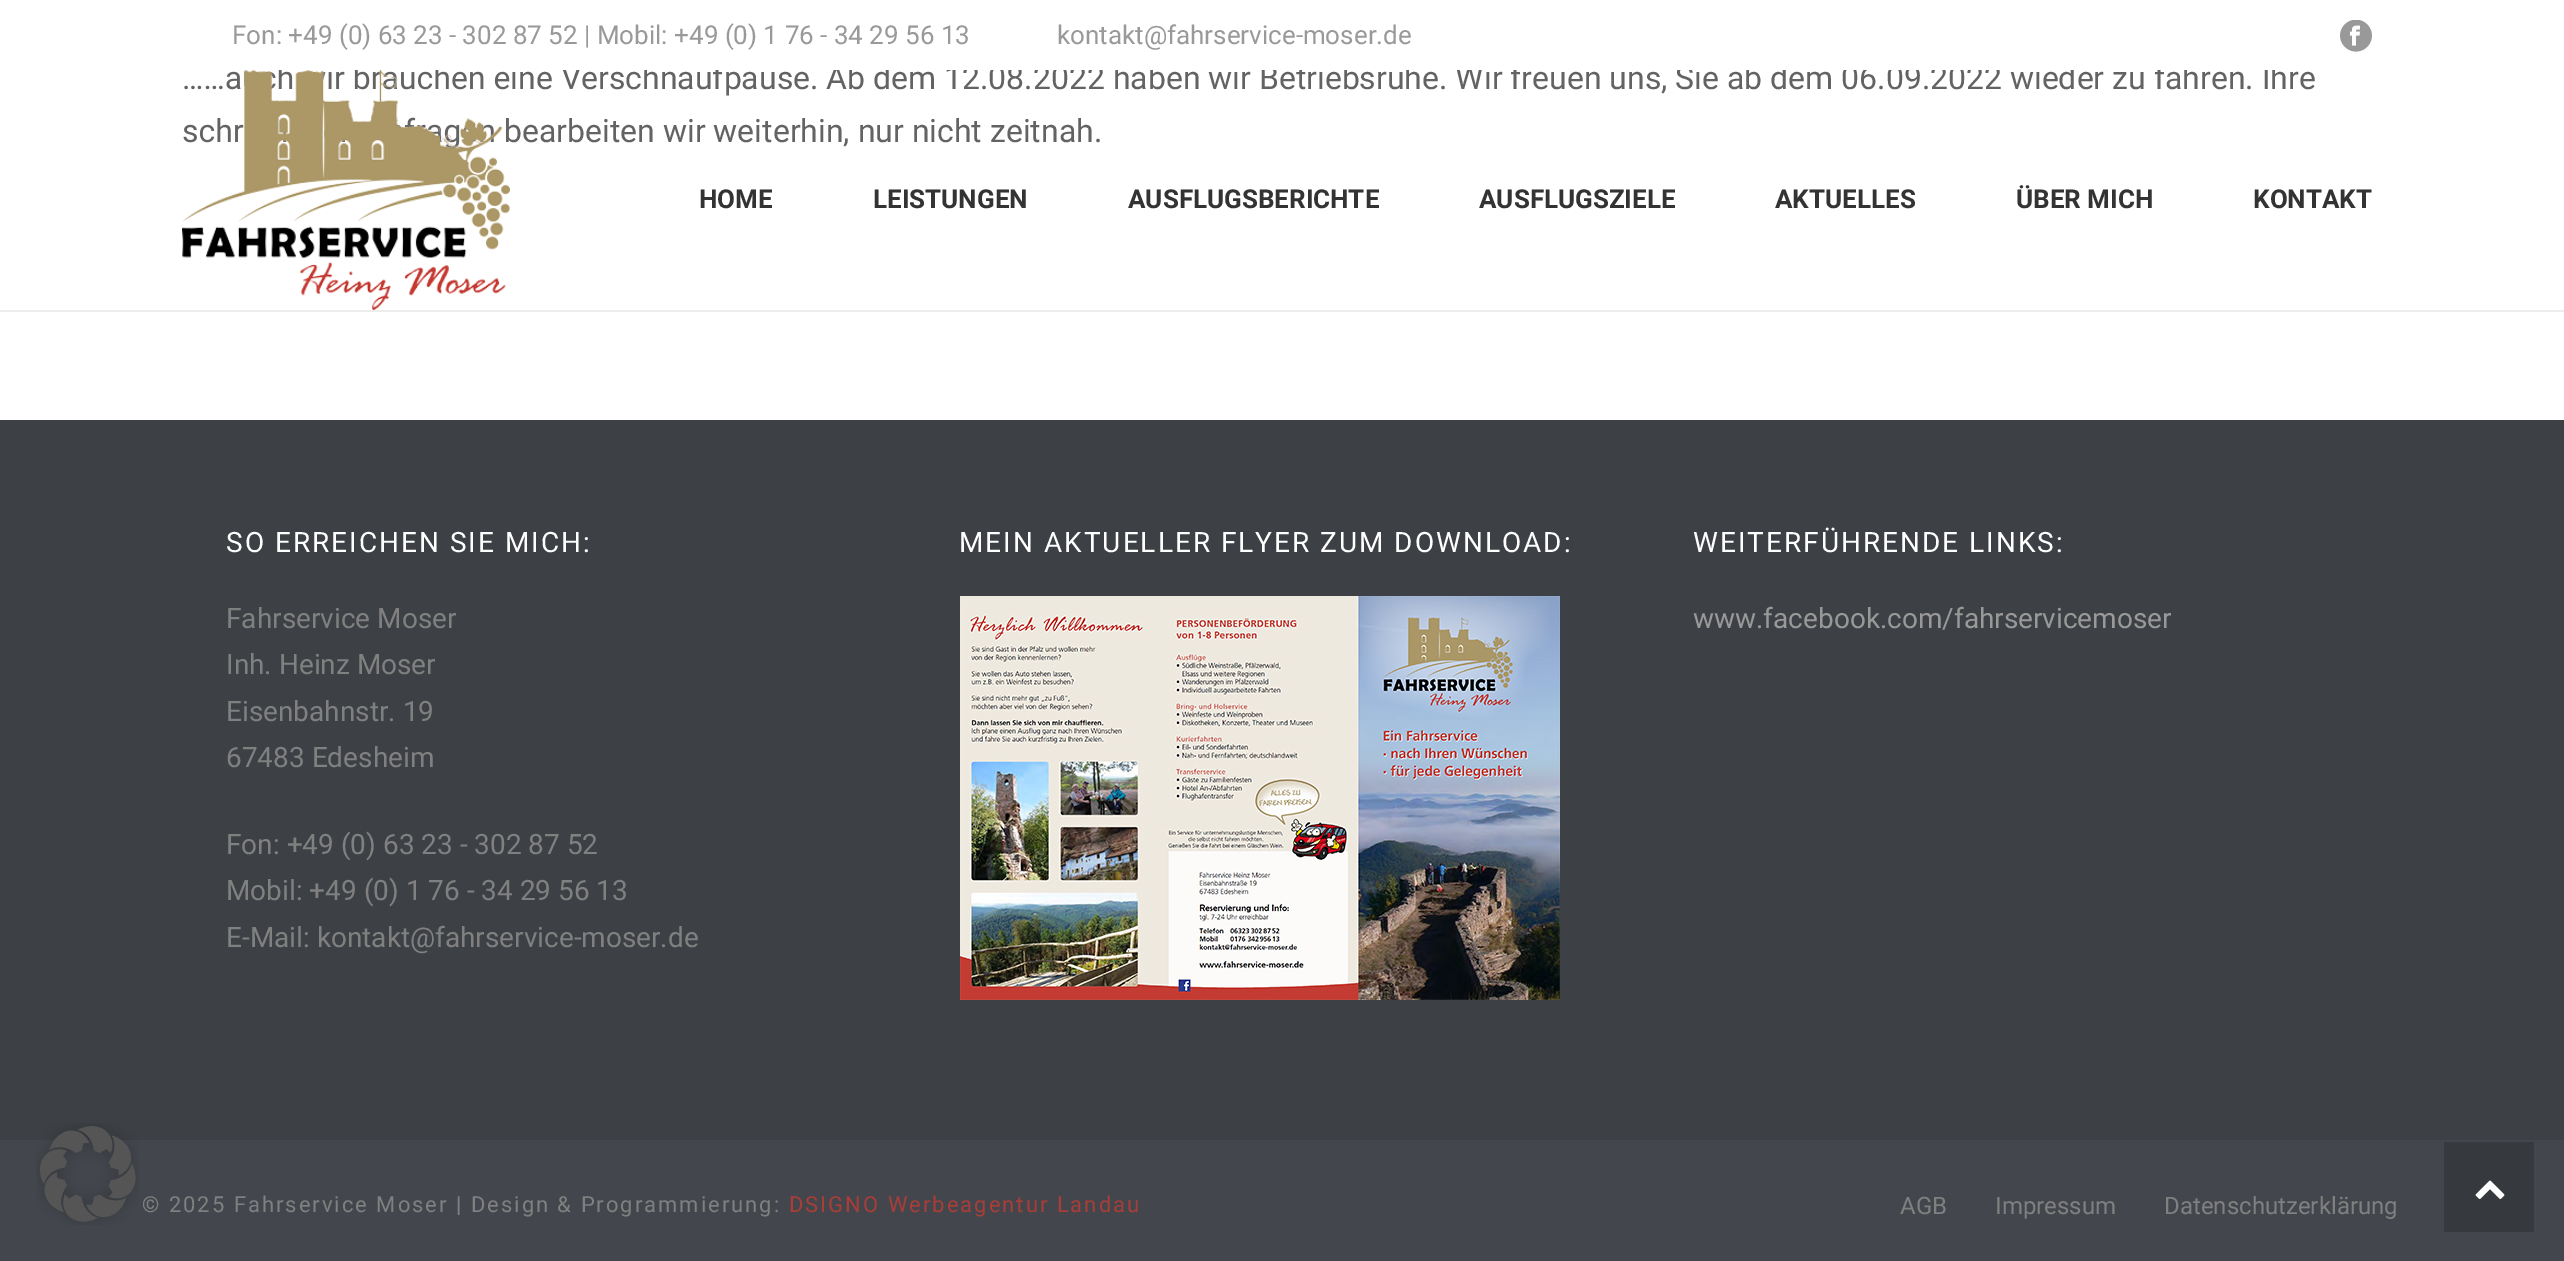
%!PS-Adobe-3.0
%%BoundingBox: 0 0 2564 1261
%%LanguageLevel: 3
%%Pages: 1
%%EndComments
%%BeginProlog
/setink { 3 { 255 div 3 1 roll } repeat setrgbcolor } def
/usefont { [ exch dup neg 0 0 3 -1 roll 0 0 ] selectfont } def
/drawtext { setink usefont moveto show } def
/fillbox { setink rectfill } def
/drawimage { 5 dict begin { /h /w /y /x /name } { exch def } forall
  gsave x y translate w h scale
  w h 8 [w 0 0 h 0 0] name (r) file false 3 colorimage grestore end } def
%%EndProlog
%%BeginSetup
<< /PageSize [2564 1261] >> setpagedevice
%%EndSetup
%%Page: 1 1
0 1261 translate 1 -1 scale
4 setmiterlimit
0 0 2564 1261 255 255 255 fillbox
0 420 2564 720 61 64 69 fillbox
0 1140 2564 121 67 71 77 fillbox
(assets/img1.rgb) 36 1123 103 102 drawimage
(……auch wir brauchen eine Verschnaufpause. Ab dem 12.08.2022 haben wir Betriebsruhe. Wir freuen uns, Sie ab dem 06.09.2022 wieder zu fahren. Ihre) 182 89 /Roboto-Regular 32 99 99 99 drawtext
278 64 1998 6 255 255 255 fillbox
(Fon: +49 \(0\) 63 23 - 302 87 52 | Mobil: +49 \(0\) 1 76 - 34 29 56 13) 232 44 /Roboto-Regular 26 153 153 153 drawtext
(kontakt@fahrservice-moser.de) 1057 44 /Roboto-Regular 26 153 153 153 drawtext
(assets/img2.rgb) 2340 20 32 32 drawimage
0 310 2564 2 237 237 237 fillbox
(schr) 182 142 /Roboto-Regular 32 99 99 99 drawtext
(g) 443 142 /Roboto-Regular 32 99 99 99 drawtext
(bearbeiten wir weiterhin, nur nicht zeitnah.) 504 142 /Roboto-Regular 32 99 99 99 drawtext
(assets/img3.rgb) 182 70 328 240 drawimage
(HOME) 699 208 /Roboto-Bold 26 51 51 51 drawtext
(LEISTUNGEN) 873 208 /Roboto-Bold 26 51 51 51 drawtext
(AUSFLUGSBERICHTE) 1128 208 /Roboto-Bold 26 51 51 51 drawtext
(AUSFLUGSZIELE) 1479 208 /Roboto-Bold 26 51 51 51 drawtext
(AKTUELLES) 1775 208 /Roboto-Bold 26 51 51 51 drawtext
(ÜBER MICH) 2016 208 /Roboto-Bold 26 51 51 51 drawtext
(KONTAKT) 2253 208 /Roboto-Bold 26 51 51 51 drawtext
/Roboto-Regular 28 usefont
255 255 255 setink
226 552 moveto 2 0 (SO ERREICHEN SIE MICH:) ashow
(Fahrservice Moser) 226 628 /Roboto-Regular 28 128 128 128 drawtext
(Inh. Heinz Moser) 226 674 /Roboto-Regular 28 128 128 128 drawtext
(Eisenbahnstr. 19) 226 721 /Roboto-Regular 28 128 128 128 drawtext
(67483 Edesheim) 226 767 /Roboto-Regular 28 128 128 128 drawtext
(Fon: +49 \(0\) 63 23 - 302 87 52) 226 854 /Roboto-Regular 28 128 128 128 drawtext
(Mobil: +49 \(0\) 1 76 - 34 29 56 13) 226 900 /Roboto-Regular 28 128 128 128 drawtext
(E-Mail: kontakt@fahrservice-moser.de) 226 947 /Roboto-Regular 28 128 128 128 drawtext
255 255 255 setink
959 552 moveto 2 0 (MEIN AKTUELLER FLYER ZUM DOWNLOAD:) ashow
(assets/img4.rgb) 960 596 600 404 drawimage
1693 552 moveto 2 0 (WEITERFÜHRENDE LINKS:) ashow
(www.facebook.com/fahrservicemoser) 1693 628 /Roboto-Regular 28 153 153 153 drawtext
/Roboto-Regular 22 usefont
128 128 128 setink
142 1212 moveto 2 0 (© 2025 Fahrservice Moser | Design & Programmierung:) ashow
169 61 55 setink
789 1212 moveto 2 0 (DSIGNO Werbeagentur Landau) ashow
(AGB) 1900 1214 /Roboto-Regular 24 128 128 128 drawtext
(Impressum) 1995 1214 /Roboto-Regular 24 128 128 128 drawtext
(Datenschutzerklärung) 2164 1214 /Roboto-Regular 24 128 128 128 drawtext
2444 1142 90 90 54 57 62 fillbox
(assets/img5.rgb) 2475 1180 30 19 drawimage
showpage
%%EOF
